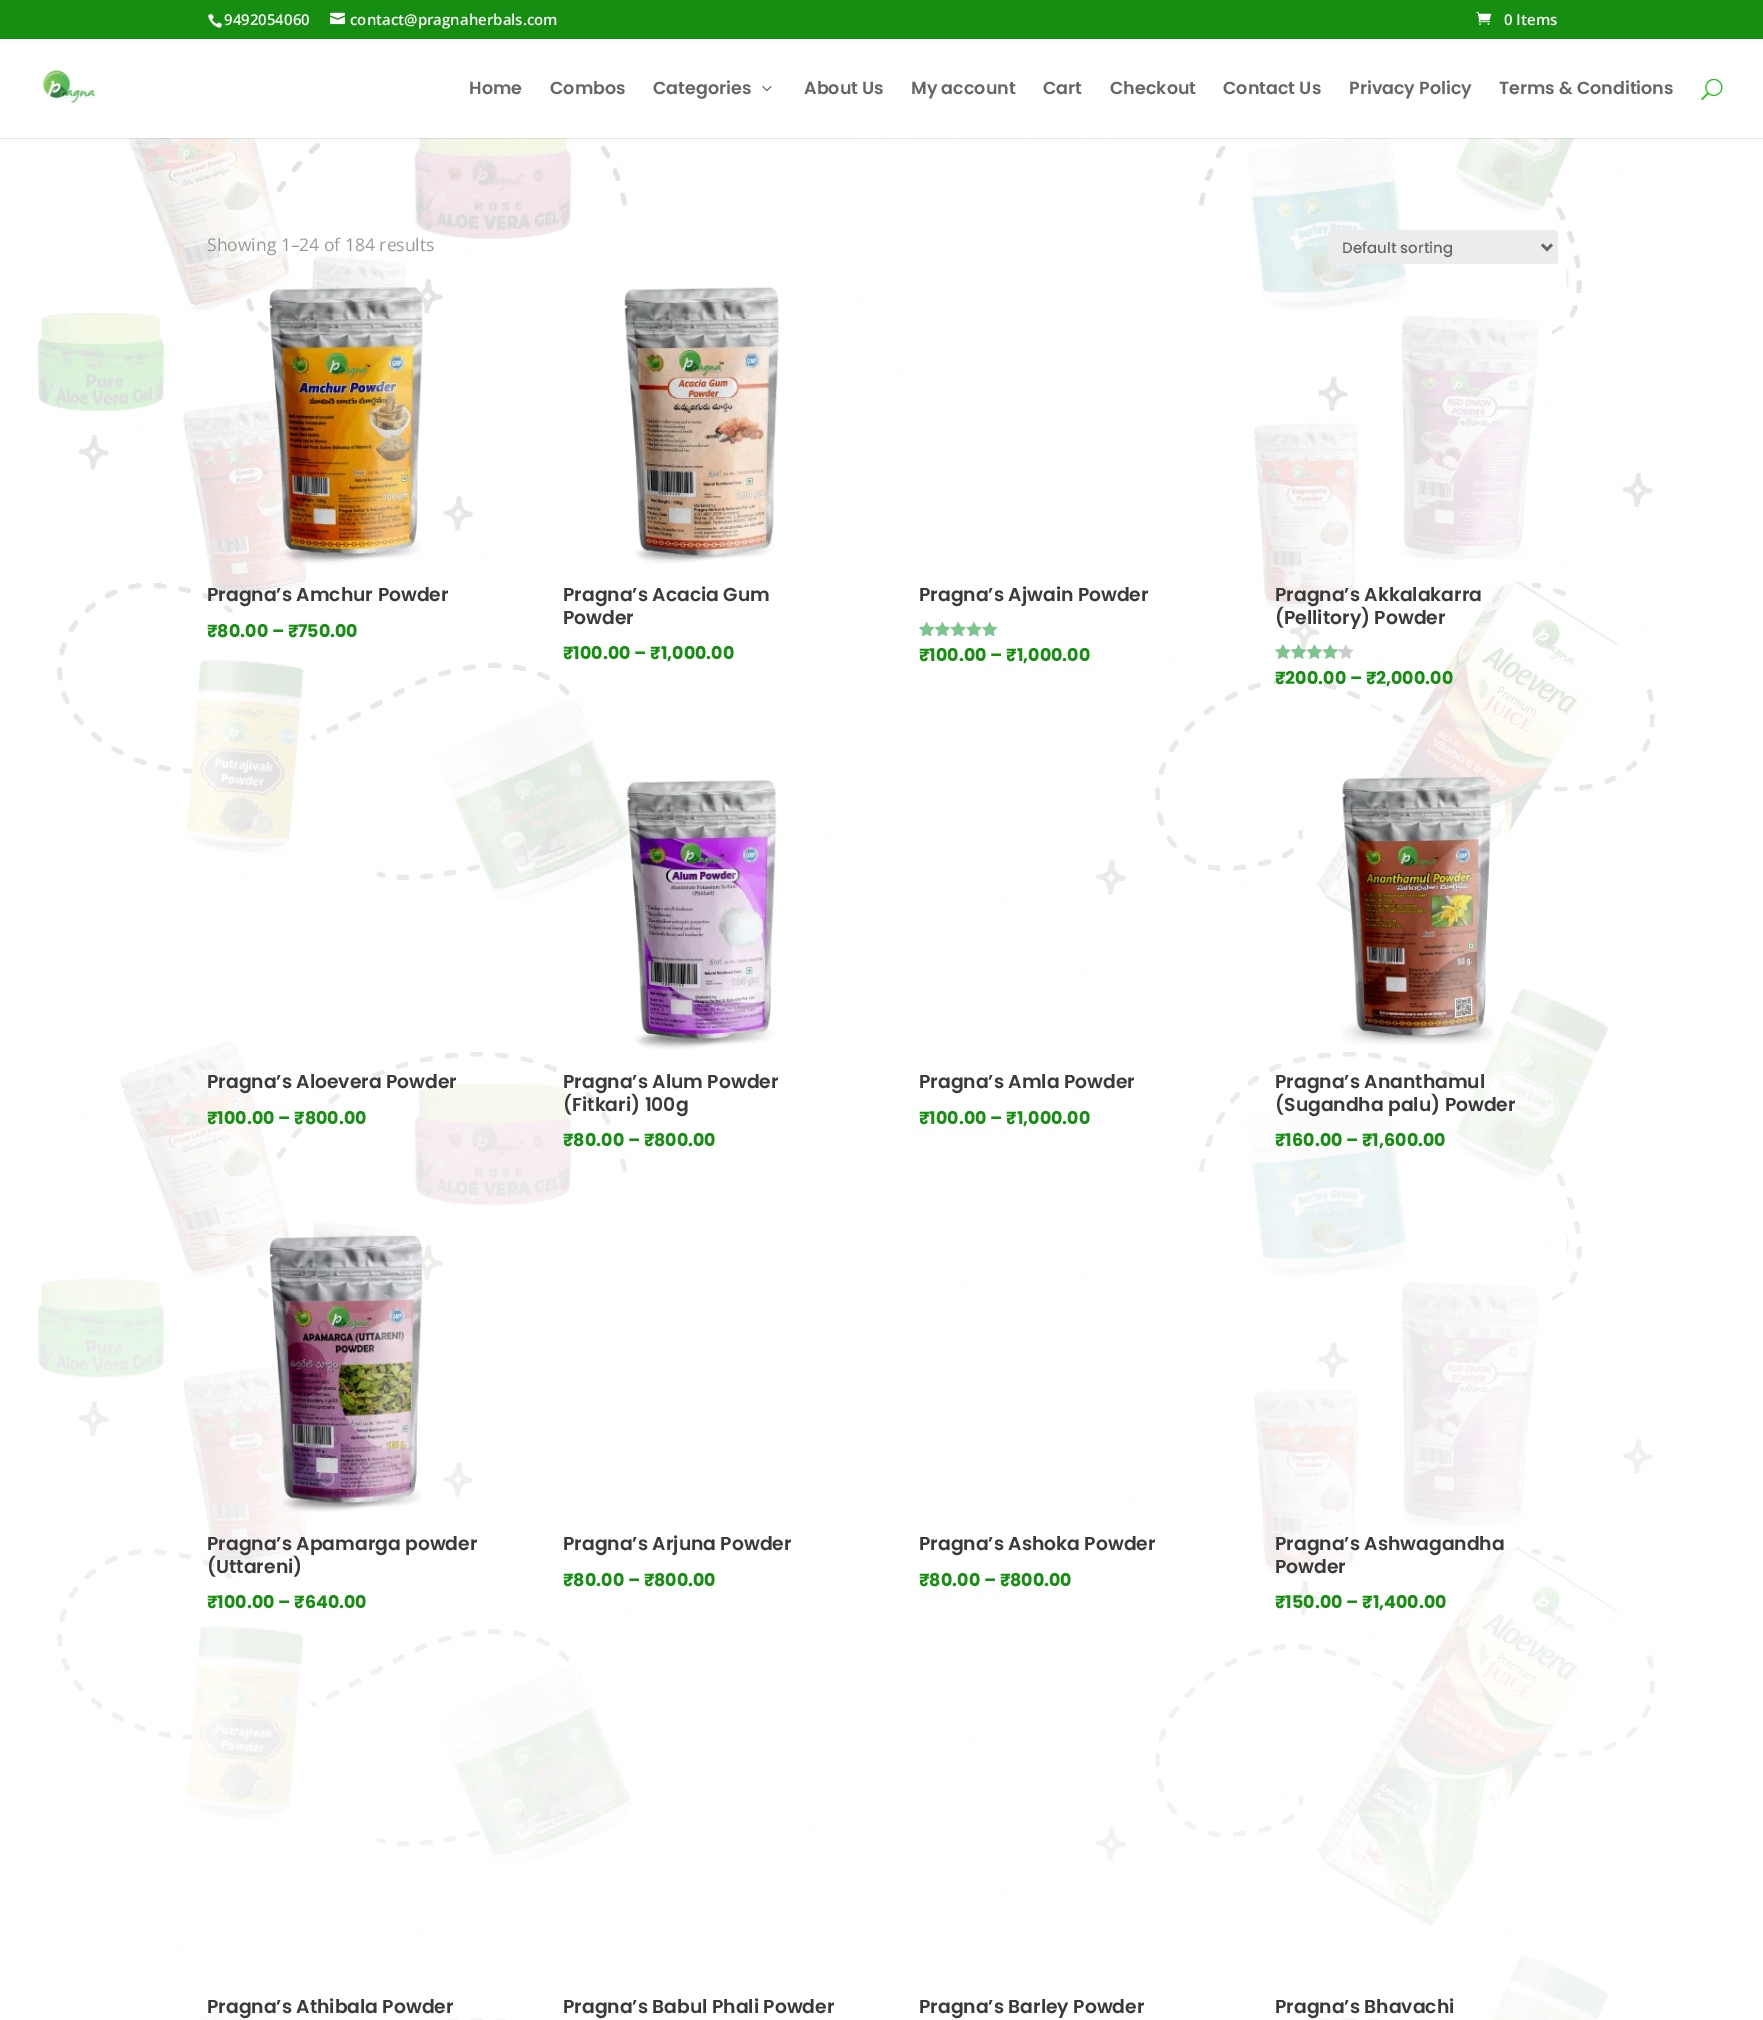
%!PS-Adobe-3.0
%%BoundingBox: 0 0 1763 2020
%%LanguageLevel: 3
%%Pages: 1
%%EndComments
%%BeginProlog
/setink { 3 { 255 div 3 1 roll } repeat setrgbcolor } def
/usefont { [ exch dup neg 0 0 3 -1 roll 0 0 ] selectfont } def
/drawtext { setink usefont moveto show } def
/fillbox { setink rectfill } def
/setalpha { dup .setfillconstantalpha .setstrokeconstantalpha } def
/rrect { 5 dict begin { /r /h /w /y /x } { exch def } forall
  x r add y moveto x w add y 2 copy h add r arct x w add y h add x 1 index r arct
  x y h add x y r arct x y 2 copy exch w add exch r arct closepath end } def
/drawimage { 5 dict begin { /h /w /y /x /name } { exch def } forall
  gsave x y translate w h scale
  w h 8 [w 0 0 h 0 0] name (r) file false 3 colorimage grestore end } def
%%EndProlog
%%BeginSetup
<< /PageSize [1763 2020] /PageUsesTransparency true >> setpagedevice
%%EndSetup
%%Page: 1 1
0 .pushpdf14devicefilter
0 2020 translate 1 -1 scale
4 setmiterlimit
0 0 1763 2020 255 255 255 fillbox
0 0 1763 39 22 142 18 fillbox
(assets/img1.rgb) 208 14 14 14 drawimage
(9492054060) 224 25 /OpenSans-SemiBold 15 255 255 255 drawtext
(assets/img2.rgb) 330 12 15 13 drawimage
(contact@pragnaherbals.com) 350 25 /OpenSans-SemiBold 15 255 255 255 drawtext
(assets/img3.rgb) 1476 11 16 14 drawimage
(0 Items) 1504 25 /OpenSans-SemiBold 15 255 255 255 drawtext
(assets/img7.rgb) 37 138 1619 1882 drawimage
0.1 setalpha
0 0 0 setink
0 138 moveto 0 139 lineto 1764 139 lineto 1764 39 lineto 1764 138 lineto closepath fill
1 setalpha
(assets/img4.rgb) 43 70 53 33 drawimage
(Home) 469 94 /Poppins-SemiBold 17.5 102 102 102 drawtext
(Combos) 550 94 /Poppins-SemiBold 17.5 102 102 102 drawtext
(Categories) 653 94 /Poppins-SemiBold 17.5 102 102 102 drawtext
(assets/img5.rgb) 762 86 10 6 drawimage
(About Us) 804 94 /Poppins-SemiBold 17.5 102 102 102 drawtext
(My account) 911 94 /Poppins-SemiBold 17.5 102 102 102 drawtext
(Cart) 1043 94 /Poppins-SemiBold 17.5 102 102 102 drawtext
(Checkout) 1110 94 /Poppins-SemiBold 17.5 102 102 102 drawtext
(Contact Us) 1223 94 /Poppins-SemiBold 17.5 102 102 102 drawtext
(Privacy Policy) 1349 94 /Poppins-SemiBold 17.5 102 102 102 drawtext
(Terms & Conditions) 1499 94 /Poppins-SemiBold 17.5 102 102 102 drawtext
(assets/img6.rgb) 1701 78 22 23 drawimage
(Showing 1–24 of 184 results) 207 251 /OpenSans-Regular 17.5 153 153 153 drawtext
236 236 236 setink
1328 230 230 34 4 rrect fill
102 102 102 setink
2.5 setlinewidth
1542 244.5 moveto 1547 249.5 lineto 1552 244.5 lineto stroke
(Default sorting) 1342 253 /Poppins-Medium 15 102 102 102 drawtext
(assets/img8.rgb) 269 287 154 277 drawimage
(Pragna’s Amchur Powder) 207 601 /Poppins-SemiBold 18.75 58 58 58 drawtext
(₹80.00 – ₹750.00) 207 637 /Poppins-Bold 17.5 22 142 18 drawtext
(assets/img9.rgb) 624 287 155 277 drawimage
(Pragna’s Acacia Gum) 563 601 /Poppins-SemiBold 18.75 58 58 58 drawtext
(Powder) 563 624 /Poppins-SemiBold 18.75 58 58 58 drawtext
(₹100.00 – ₹1,000.00) 563 659 /Poppins-Bold 17.5 22 142 18 drawtext
(Pragna’s Ajwain Powder) 919 601 /Poppins-SemiBold 18.75 58 58 58 drawtext
(assets/img11.rgb) 919 622 79 14 drawimage
(assets/img10.rgb) 919 621 79 15 drawimage
(₹100.00 – ₹1,000.00) 919 661 /Poppins-Bold 17.5 22 142 18 drawtext
(Pragna’s Akkalakarra) 1275 601 /Poppins-SemiBold 18.75 58 58 58 drawtext
(\(Pellitory\) Powder) 1275 624 /Poppins-SemiBold 18.75 58 58 58 drawtext
(assets/img12.rgb) 1275 644 79 15 drawimage
(assets/img13.rgb) 1275 644 65 15 drawimage
(₹200.00 – ₹2,000.00) 1275 684 /Poppins-Bold 17.5 22 142 18 drawtext
(Pragna’s Aloevera Powder) 207 1088 /Poppins-SemiBold 18.75 58 58 58 drawtext
(₹100.00 – ₹800.00) 207 1124 /Poppins-Bold 17.5 22 142 18 drawtext
(assets/img14.rgb) 627 779 150 271 drawimage
(Pragna’s Alum Powder) 563 1088 /Poppins-SemiBold 18.75 58 58 58 drawtext
(\(Fitkari\) 100g) 563 1111 /Poppins-SemiBold 18.75 58 58 58 drawtext
(₹80.00 – ₹800.00) 563 1146 /Poppins-Bold 17.5 22 142 18 drawtext
(Pragna’s Amla Powder) 919 1088 /Poppins-SemiBold 18.75 58 58 58 drawtext
(₹100.00 – ₹1,000.00) 919 1124 /Poppins-Bold 17.5 22 142 18 drawtext
(assets/img15.rgb) 1342 776 151 269 drawimage
(Pragna’s Ananthamul) 1275 1088 /Poppins-SemiBold 18.75 58 58 58 drawtext
(\(Sugandha palu\) Powder) 1275 1111 /Poppins-SemiBold 18.75 58 58 58 drawtext
(₹160.00 – ₹1,600.00) 1275 1146 /Poppins-Bold 17.5 22 142 18 drawtext
(assets/img16.rgb) 269 1235 154 278 drawimage
(Pragna’s Apamarga powder) 207 1550 /Poppins-SemiBold 18.75 58 58 58 drawtext
(\(Uttareni\)) 207 1573 /Poppins-SemiBold 18.75 58 58 58 drawtext
(₹100.00 – ₹640.00) 207 1608 /Poppins-Bold 17.5 22 142 18 drawtext
(Pragna’s Arjuna Powder) 563 1550 /Poppins-SemiBold 18.75 58 58 58 drawtext
(₹80.00 – ₹800.00) 563 1586 /Poppins-Bold 17.5 22 142 18 drawtext
(Pragna’s Ashoka Powder) 919 1550 /Poppins-SemiBold 18.75 58 58 58 drawtext
(₹80.00 – ₹800.00) 919 1586 /Poppins-Bold 17.5 22 142 18 drawtext
(Pragna’s Ashwagandha) 1275 1550 /Poppins-SemiBold 18.75 58 58 58 drawtext
(Powder) 1275 1573 /Poppins-SemiBold 18.75 58 58 58 drawtext
(₹150.00 – ₹1,400.00) 1275 1608 /Poppins-Bold 17.5 22 142 18 drawtext
(Pragna’s Athibala Powder) 207 2013 /Poppins-SemiBold 18.75 58 58 58 drawtext
(Pragna’s Babul Phali Powder) 563 2013 /Poppins-SemiBold 18.75 58 58 58 drawtext
(Pragna’s Barley Powder) 919 2013 /Poppins-SemiBold 18.75 58 58 58 drawtext
(Pragna’s Bhavachi) 1275 2013 /Poppins-SemiBold 18.75 58 58 58 drawtext
.poppdf14devicefilter showpage
%%EOF
